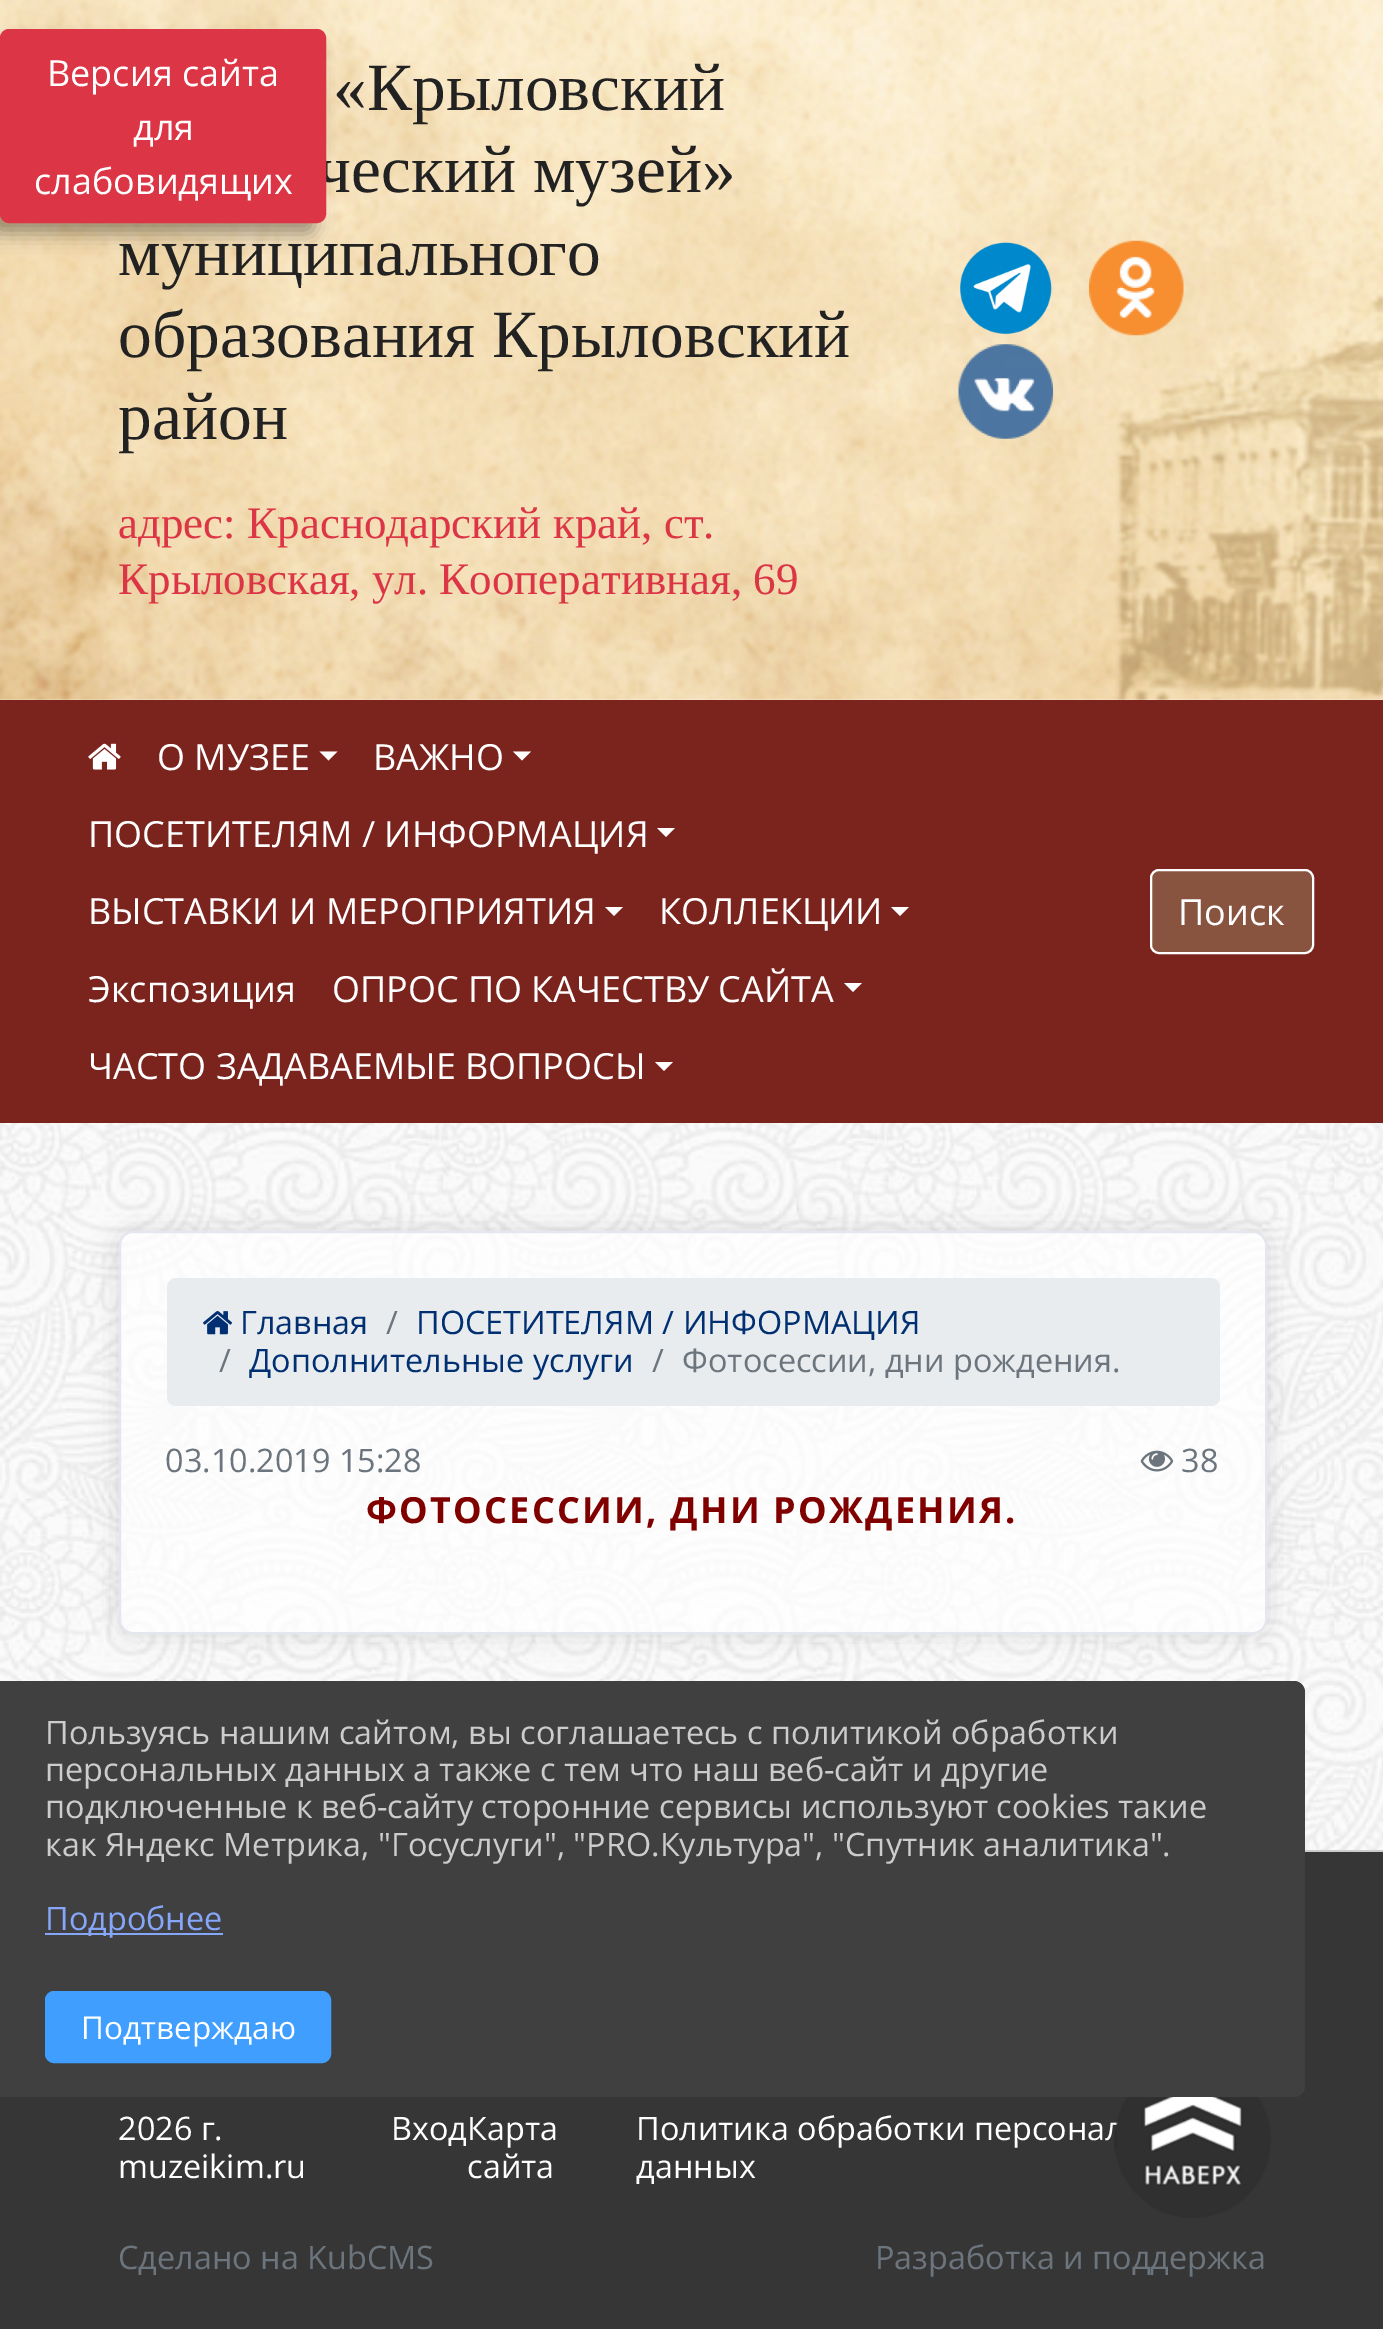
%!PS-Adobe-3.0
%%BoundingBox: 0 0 1383 2329
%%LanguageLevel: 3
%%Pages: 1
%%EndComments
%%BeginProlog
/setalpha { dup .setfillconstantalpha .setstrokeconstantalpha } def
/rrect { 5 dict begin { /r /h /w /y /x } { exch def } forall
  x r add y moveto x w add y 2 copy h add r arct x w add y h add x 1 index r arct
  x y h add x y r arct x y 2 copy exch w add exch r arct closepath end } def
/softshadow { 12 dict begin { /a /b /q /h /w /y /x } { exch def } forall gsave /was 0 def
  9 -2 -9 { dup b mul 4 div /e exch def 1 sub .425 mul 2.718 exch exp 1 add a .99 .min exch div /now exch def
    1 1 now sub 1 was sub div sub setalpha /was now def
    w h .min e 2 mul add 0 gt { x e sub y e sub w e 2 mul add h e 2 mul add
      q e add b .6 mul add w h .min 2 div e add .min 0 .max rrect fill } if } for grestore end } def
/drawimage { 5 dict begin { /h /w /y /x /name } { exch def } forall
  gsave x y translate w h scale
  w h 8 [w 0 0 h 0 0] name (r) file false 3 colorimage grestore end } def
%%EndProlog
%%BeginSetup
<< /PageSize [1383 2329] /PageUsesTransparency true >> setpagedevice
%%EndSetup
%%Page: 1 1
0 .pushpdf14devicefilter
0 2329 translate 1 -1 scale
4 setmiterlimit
1 setgray
0 0 1383 2329 rectfill
(images/1.raw) 0 699 1383 1151 drawimage
(images/2.raw) 0 0 1383 700 drawimage
0 setgray
-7 45 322 189 7 9 0.35 softshadow
(images/3.raw) 960 242 92 93 drawimage
(images/4.raw) 1089 240 95 96 drawimage
(images/5.raw) 958 344 95 95 drawimage
0.482 0.141 0.118 setrgbcolor
0 700 1383 423 rectfill
(images/6.raw) 88 743 33 27 drawimage
1 setgray
newpath 319.5 751.5 moveto 337.5 751.5 lineto 328.5 760.5 lineto closepath fill
newpath 513 751.5 moveto 531 751.5 lineto 522 760.5 lineto closepath fill
newpath 657 828 moveto 675 828 lineto 666 837 lineto closepath fill
newpath 605 907 moveto 623 907 lineto 614 916 lineto closepath fill
newpath 891 907 moveto 909 907 lineto 900 916 lineto closepath fill
newpath 844 983 moveto 862 983 lineto 853 992 lineto closepath fill
newpath 655 1062 moveto 673 1062 lineto 664 1071 lineto closepath fill
0.533 0.329 0.251 setrgbcolor
1151 870 162 83 8 rrect gsave fill grestore
1 setgray
2 setlinewidth
stroke
gsave
newpath 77 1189 moveto 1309 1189 lineto 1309 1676 lineto 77 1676 lineto closepath 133 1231 moveto 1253 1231 lineto 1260.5 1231 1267 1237.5 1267 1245 curveto 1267 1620 lineto 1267 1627.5 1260.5 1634 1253 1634 curveto 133 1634 lineto 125.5 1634 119 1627.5 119 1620 curveto 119 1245 lineto 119 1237.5 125.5 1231 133 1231 curveto closepath eoclip newpath
0 setgray
119 1231 1148 403 14 13.5 0.12 softshadow
grestore
0.7 setalpha
120 1232 1146 401 13 rrect fill
1 setalpha
0.894 0.906 0.929 setrgbcolor
120 1232 1146 401 13 rrect stroke
0.914 0.925 0.937 setrgbcolor
167 1278 1053 128 9 rrect fill
(images/7.raw) 203 1311 30 24 drawimage
(images/8.raw) 1140 1450 34 22 drawimage
0.216 0.212 0.212 setrgbcolor
0 1852 1383 477 rectfill
0.8 setgray
1305 1850 78 2 rectfill
0.251 setgray
newpath 0 1681 moveto 1294 1681 lineto 1300 1681 1305 1686 1305 1692 curveto 1305 2086 lineto 1305 2092 1300 2097 1294 2097 curveto 0 2097 lineto closepath fill
0.522 0.651 0.976 setrgbcolor
45 1933 178 2 rectfill
0.251 0.62 1 setrgbcolor
46 1992 284 70 8 rrect gsave fill grestore
stroke
/LiberationSerif-Regular [67.5 0 0 -67.5 0 0] selectfont
0.133 setgray
333 110 moveto («Крыловский) show
317 192 moveto (ческий музей») show
0.863 0.208 0.271 setrgbcolor
1 30 324 192 8 rrect gsave fill grestore
stroke
/OpenSans-Regular [36 0 0 -36 0 0] selectfont
1 setgray
34 194 moveto (слабовидящих) show
133 140 moveto (для) show
47 86 moveto (Версия сайта) show
/LiberationSerif-Regular [67.5 0 0 -67.5 0 0] selectfont
0.133 setgray
118 275 moveto (муниципального) show
118 357 moveto (образования Крыловский) show
118 439 moveto (район) show
/LiberationSerif-Regular [45 0 0 -45 0 0] selectfont
0.863 0.208 0.271 setrgbcolor
118 538 moveto (адрес: Краснодарский край, ст.) show
118 594 moveto (Крыловская, ул. Кооперативная, 69) show
/OpenSans-Regular [36 0 0 -36 0 0] selectfont
1 setgray
157 770 moveto (О МУЗЕЕ) show
373 770 moveto (ВАЖНО) show
88 847 moveto (ПОСЕТИТЕЛЯМ / ИНФОРМАЦИЯ) show
88 924 moveto (ВЫСТАВКИ И МЕРОПРИЯТИЯ) show
659 924 moveto (КОЛЛЕКЦИИ) show
88 1002 moveto (Экспозиция) show
332 1002 moveto (ОПРОС ПО КАЧЕСТВУ САЙТА) show
88 1079 moveto (ЧАСТО ЗАДАВАЕМЫЕ ВОПРОСЫ) show
1178 925 moveto (Поиск) show
/OpenSans-Regular [32.4 0 0 -32.4 0 0] selectfont
0 0.184 0.447 setrgbcolor
240 1334 moveto (Главная) show
0.424 0.459 0.49 setrgbcolor
386 1334 moveto (/) show
0 0.184 0.447 setrgbcolor
416 1334 moveto (ПОСЕТИТЕЛЯМ / ИНФОРМАЦИЯ) show
0.424 0.459 0.49 setrgbcolor
219 1372 moveto (/) show
0 0.184 0.447 setrgbcolor
249 1372 moveto (Дополнительные услуги) show
0.424 0.459 0.49 setrgbcolor
652 1372 moveto (/) show
682 1372 moveto (Фотосессии, дни рождения.) show
165 1472 moveto (03.10.2019 15:28) show
1181 1472 moveto (38) show
/OpenSans-Bold [36 0 0 -36 0 0] selectfont
0.502 0 0 setrgbcolor
366 1523 moveto 2.25 0 (ФОТОСЕССИИ, ДНИ РОЖДЕНИЯ.) ashow
/OpenSans-Regular [32.4 0 0 -32.4 0 0] selectfont
1 setgray
118 2140 moveto (2026 г.) show
118 2178 moveto (muzeikim.ru) show
391 2140 moveto (ВходКарта) show
636 2140 moveto (Политика обработки персонал) show
(images/9.raw) 1114 2097 157 121 drawimage
636 2178 moveto (данных) show
467 2178 moveto (сайта) show
0.424 0.459 0.49 setrgbcolor
118 2269 moveto (Сделано на KubCMS) show
875 2269 moveto (Разработка и поддержка) show
0.8 setgray
45 1744 moveto (Пользуясь нашим сайтом, вы соглашаетесь с политикой обработки) show
45 1781 moveto (персональных данных а также с тем что наш веб-сайт и другие) show
45 1818 moveto (подключенные к веб-сайту сторонние сервисы используют cookies такие) show
45 1856 moveto (как Яндекс Метрика, "Госуслуги", "PRO.Культура", "Спутник аналитика".) show
0.522 0.651 0.976 setrgbcolor
45 1930 moveto (Подробнее) show
/OpenSans-Regular [31.5 0 0 -31.5 0 0] selectfont
1 setgray
81 2039 moveto (Подтверждаю) show
.poppdf14devicefilter showpage
%%EOF
